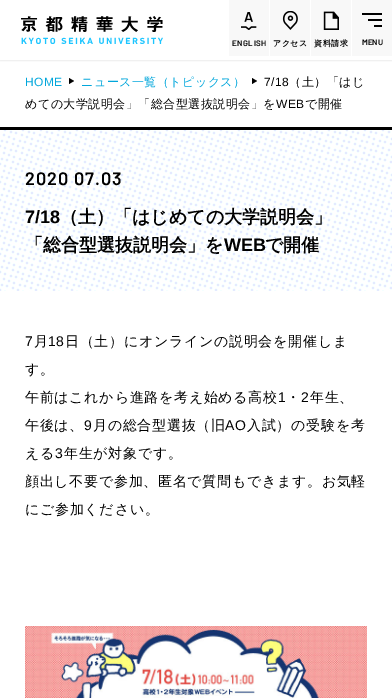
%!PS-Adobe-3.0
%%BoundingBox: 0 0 392 698
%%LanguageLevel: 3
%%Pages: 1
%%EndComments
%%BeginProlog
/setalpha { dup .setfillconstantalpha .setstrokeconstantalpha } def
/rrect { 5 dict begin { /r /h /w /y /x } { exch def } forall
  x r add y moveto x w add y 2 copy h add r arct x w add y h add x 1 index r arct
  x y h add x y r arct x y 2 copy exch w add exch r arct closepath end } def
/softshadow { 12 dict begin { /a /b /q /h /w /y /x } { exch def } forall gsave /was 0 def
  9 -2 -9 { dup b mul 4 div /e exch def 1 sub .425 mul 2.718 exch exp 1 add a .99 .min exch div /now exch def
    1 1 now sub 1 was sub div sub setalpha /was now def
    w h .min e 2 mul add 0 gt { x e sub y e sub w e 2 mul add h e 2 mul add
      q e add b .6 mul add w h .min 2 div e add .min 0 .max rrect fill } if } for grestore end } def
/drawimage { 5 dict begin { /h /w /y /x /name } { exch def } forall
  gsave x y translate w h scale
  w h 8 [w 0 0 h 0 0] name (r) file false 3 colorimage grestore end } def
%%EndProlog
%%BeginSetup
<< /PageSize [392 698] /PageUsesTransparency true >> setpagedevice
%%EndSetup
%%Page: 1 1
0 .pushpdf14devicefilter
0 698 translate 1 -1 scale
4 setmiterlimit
1 setgray
0 0 392 698 rectfill
gsave
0 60 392 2 rectclip
0.933 setgray
0 1 392 60 0 0.5 1 softshadow
grestore
(images/1.raw) 21 16 142 28 drawimage
0.973 setgray
229 0 40 56 rectfill
(images/2.raw) 241 12 16 18 drawimage
270 0 40 56 rectfill
(images/3.raw) 282 11 16 19 drawimage
311 0 40 56 rectfill
(images/4.raw) 323 11 16 19 drawimage
352 0 40 56 rectfill
0 setgray
368 19 14 2 rectfill
362 13 20 2 rectfill
374 25 8 2 rectfill
newpath 252 84 moveto 252 78 lineto 257 81 lineto closepath fill
newpath 69 84 moveto 69 78 lineto 74 81 lineto closepath fill
(images/5.raw) 0 130 392 161 drawimage
0 127 392 3 rectfill
(images/6.raw) 25 626 342 72 drawimage
/Barlow-SemiBold [8 0 0 -8 0 0] selectfont
232 46 moveto 0.5 0 (ENGLISH) ashow
/WenQuanYiZenHei-Bold [8 0 0 -8 0 0] selectfont
273 46 moveto 0.5 0 (アクセス) ashow
314 46 moveto 0.5 0 (資料請求) ashow
/Barlow-SemiBold [8 0 0 -8 0 0] selectfont
362 45 moveto (MENU) show
/LiberationSans-Regular [12 0 0 -12 0 0] selectfont
264 86 moveto 0.5 0 (7/18) ashow
/WenQuanYiZenHei-Medium [12 0 0 -12 0 0] selectfont
289 86 moveto 0.5 0 (（土）「はじ) ashow
25 108 moveto 0.5 0 (めての大学説明会」「総合型選抜説明会」を) ashow
/LiberationSans-Regular [12 0 0 -12 0 0] selectfont
276 108 moveto 0.5 0 (WEB) ashow
/WenQuanYiZenHei-Medium [12 0 0 -12 0 0] selectfont
305 108 moveto 0.5 0 (で開催) ashow
/LiberationSans-Regular [12 0 0 -12 0 0] selectfont
0.004 0.651 0.859 setrgbcolor
25 86 moveto 0.5 0 (HOME) ashow
/WenQuanYiZenHei-Medium [12 0 0 -12 0 0] selectfont
81 86 moveto 0.5 0 (ニュース一覧（トピックス）) ashow
/Barlow-SemiBold [18 0 0 -18 0 0] selectfont
0 setgray
25 185 moveto 1 0 (2020 07.03) ashow
/LiberationSans-Bold [18 0 0 -18 0 0] selectfont
25 223 moveto (7/18) show
/WenQuanYiZenHei-Bold [18 0 0 -18 0 0] selectfont
60 223 moveto (（土）「はじめての大学説明会」) show
25 251 moveto (「総合型選抜説明会」を) show
/LiberationSans-Bold [18 0 0 -18 0 0] selectfont
224 251 moveto (WEB) show
/WenQuanYiZenHei-Bold [18 0 0 -18 0 0] selectfont
265 251 moveto (で開催) show
/LiberationSans-Regular [14 0 0 -14 0 0] selectfont
25 346 moveto 0.7 0 (7) ashow
/WenQuanYiZenHei-Medium [14 0 0 -14 0 0] selectfont
34 346 moveto 0.7 0 (月) ashow
/LiberationSans-Regular [14 0 0 -14 0 0] selectfont
48 346 moveto 0.7 0 (18) ashow
/WenQuanYiZenHei-Medium [14 0 0 -14 0 0] selectfont
65 346 moveto 0.7 0 (日（土）にオンラインの説明会を開催しま) ashow
25 374 moveto 0.7 0 (す。) ashow
25 402 moveto 0.7 0 (午前はこれから進路を考え始める高校) ashow
/LiberationSans-Regular [14 0 0 -14 0 0] selectfont
278 402 moveto 0.7 0 (1) ashow
/WenQuanYiZenHei-Medium [14 0 0 -14 0 0] selectfont
286 402 moveto 0.7 0 (・) ashow
/LiberationSans-Regular [14 0 0 -14 0 0] selectfont
301 402 moveto 0.7 0 (2) ashow
/WenQuanYiZenHei-Medium [14 0 0 -14 0 0] selectfont
310 402 moveto 0.7 0 (年生、) ashow
25 430 moveto 0.7 0 (午後は、) ashow
/LiberationSans-Regular [14 0 0 -14 0 0] selectfont
84 430 moveto 0.7 0 (9) ashow
/WenQuanYiZenHei-Medium [14 0 0 -14 0 0] selectfont
93 430 moveto 0.7 0 (月の総合型選抜（旧) ashow
/LiberationSans-Regular [14 0 0 -14 0 0] selectfont
225 430 moveto 0.7 0 (AO) ashow
/WenQuanYiZenHei-Medium [14 0 0 -14 0 0] selectfont
247 430 moveto 0.7 0 (入試）の受験を考) ashow
25 458 moveto 0.7 0 (える) ashow
/LiberationSans-Regular [14 0 0 -14 0 0] selectfont
55 458 moveto 0.7 0 (3) ashow
/WenQuanYiZenHei-Medium [14 0 0 -14 0 0] selectfont
64 458 moveto 0.7 0 (年生が対象です。) ashow
25 486 moveto 0.7 0 (顔出し不要で参加、匿名で質問もできます。お気軽) ashow
25 514 moveto 0.7 0 (にご参加ください。) ashow
.poppdf14devicefilter showpage
%%EOF
